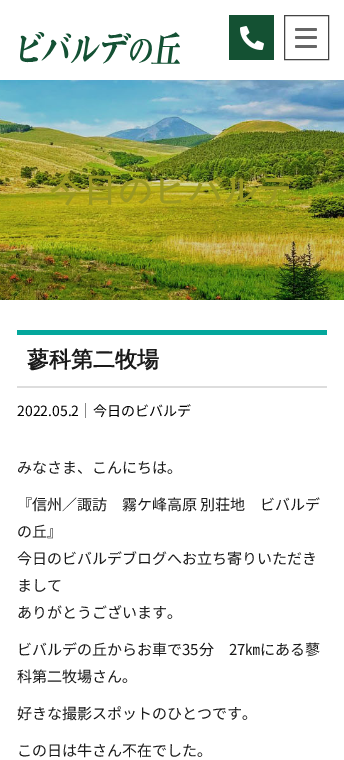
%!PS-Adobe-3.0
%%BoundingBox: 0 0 344 760
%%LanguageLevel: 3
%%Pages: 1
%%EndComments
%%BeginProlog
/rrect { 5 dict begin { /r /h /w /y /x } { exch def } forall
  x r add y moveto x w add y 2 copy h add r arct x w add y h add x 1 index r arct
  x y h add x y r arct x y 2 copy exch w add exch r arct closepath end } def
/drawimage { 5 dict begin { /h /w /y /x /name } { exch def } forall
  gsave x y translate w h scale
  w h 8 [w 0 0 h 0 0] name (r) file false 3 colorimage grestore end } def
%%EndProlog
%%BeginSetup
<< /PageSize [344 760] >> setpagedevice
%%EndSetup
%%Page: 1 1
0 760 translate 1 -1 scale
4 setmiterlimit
1 setgray
0 0 344 760 rectfill
(images/1.raw) 20 32 160 32 drawimage
0.078 0.318 0.2 setrgbcolor
229 15 45 45 rectfill
(images/2.raw) 240 26 24 24 drawimage
0.267 setgray
284.5 15.5 44 44 rectstroke
0.4 setgray
295 28 22 3 1.5 rrect fill
295 36 22 3 1.5 rrect fill
295 45 22 3 1.5 rrect fill
(images/3.raw) 0 80 344 220 drawimage
0.016 0.655 0.612 setrgbcolor
17 330 310 5 rectfill
0.867 setgray
17 386 310 2 rectfill
0.533 setgray
85 403 1 15 rectfill
/WenQuanYiZenHei-Bold [32 0 0 -32 0 0] selectfont
0.6 0.592 0.137 setrgbcolor
50 201 moveto 2.25 0 (今日のビバルデ) ashow
/WenQuanYiZenHei-Bold [22 0 0 -22 0 0] selectfont
0.102 setgray
27 367 moveto (蓼科第二牧場) show
/NotoSansJP-Regular [14 0 0 -14 0 0] selectfont
0 setgray
17 416 moveto (2022.05.2) show
93 416 moveto (今日のビバルデ) show
/NotoSansJP-Regular [15 0 0 -15 0 0] selectfont
0.102 setgray
17 473 moveto (みなさま、こんにちは。) show
17 510 moveto (『信州／諏訪　霧ケ峰高原 別荘地　ビバルデ) show
17 537 moveto (の丘』) show
17 564 moveto (今日のビバルデブログへお立ち寄りいただき) show
17 591 moveto (まして) show
17 618 moveto (ありがとうございます。) show
17 655 moveto (ビバルデの丘からお車で35分　27㎞にある蓼) show
17 682 moveto (科第二牧場さん。) show
17 719 moveto (好きな撮影スポットのひとつです。) show
17 756 moveto (この日は牛さん不在でした。) show
showpage
%%EOF
